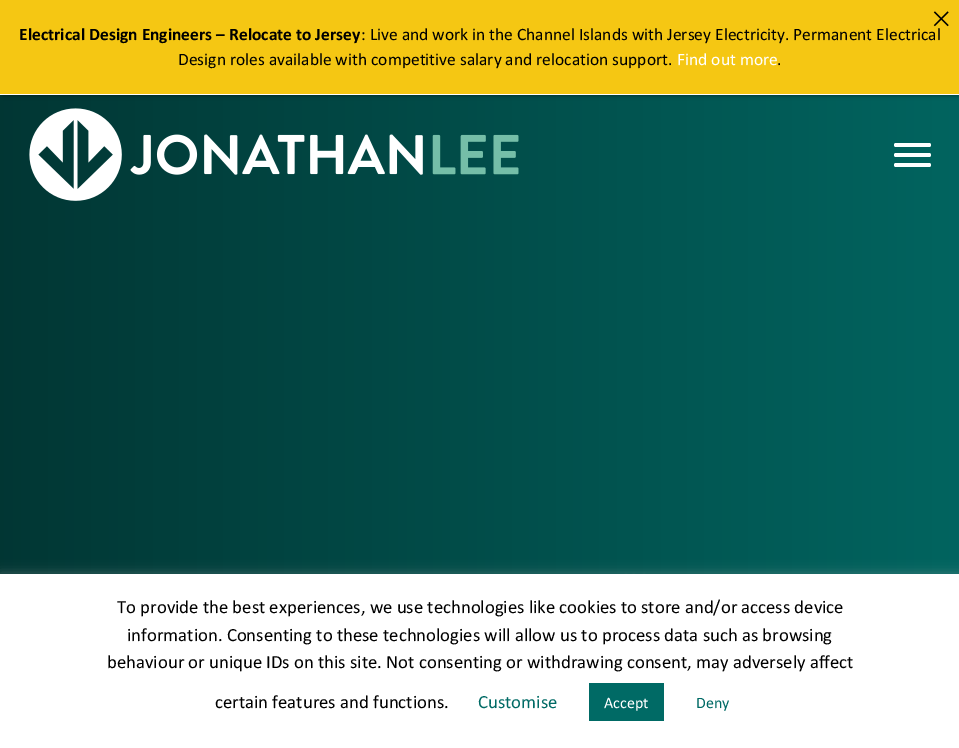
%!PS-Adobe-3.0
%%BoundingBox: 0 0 959 748
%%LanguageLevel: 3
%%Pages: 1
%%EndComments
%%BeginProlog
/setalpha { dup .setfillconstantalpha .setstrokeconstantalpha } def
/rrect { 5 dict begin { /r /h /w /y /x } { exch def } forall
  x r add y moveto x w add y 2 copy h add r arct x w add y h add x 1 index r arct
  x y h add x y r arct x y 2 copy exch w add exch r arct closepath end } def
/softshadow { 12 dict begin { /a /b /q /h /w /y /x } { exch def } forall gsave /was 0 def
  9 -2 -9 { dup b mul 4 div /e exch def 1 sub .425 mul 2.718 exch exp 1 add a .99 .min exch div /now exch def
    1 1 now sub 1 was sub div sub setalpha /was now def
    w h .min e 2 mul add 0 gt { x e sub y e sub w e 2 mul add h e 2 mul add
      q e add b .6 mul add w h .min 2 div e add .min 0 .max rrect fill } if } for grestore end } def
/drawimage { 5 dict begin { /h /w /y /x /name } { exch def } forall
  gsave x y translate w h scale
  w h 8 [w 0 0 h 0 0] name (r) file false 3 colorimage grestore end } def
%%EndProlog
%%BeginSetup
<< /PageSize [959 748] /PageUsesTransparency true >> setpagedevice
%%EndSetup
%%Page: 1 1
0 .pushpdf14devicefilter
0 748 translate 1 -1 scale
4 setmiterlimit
1 setgray
0 0 959 748 rectfill
(images/2.raw) 0 95 959 479 drawimage
0 setgray
3 5 955 90 0 2.5 0.5 softshadow
0.961 0.78 0.075 setrgbcolor
0 0 959 94 rectfill
1 setgray
0 94 959 1 rectfill
(images/1.raw) 933 11 16 16 drawimage
(images/3.raw) 29 108 490 93 drawimage
894 153 37 4 2 rrect fill
894 143 37 4 2 rrect fill
894 163 37 4 2 rrect fill
0.675 0.671 0.671 setrgbcolor
0 573 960 175 0 6 0.3 softshadow
1 setgray
0 574 959 174 rectfill
0 0.416 0.396 setrgbcolor
589 683 75 38 rectfill
/Calibri-Bold [17.5 0 0 -17.5 0 0] selectfont
0 setgray
19 40 moveto (Electrical Design Engineers – Relocate to Jersey) show
/Calibri-Regular [17.5 0 0 -17.5 0 0] selectfont
361 40 moveto (: Live and work in the Channel Islands with Jersey Electricity. Permanent Electrical) show
178 65 moveto (Design roles available with competitive salary and relocation support.) show
1 setgray
677 65 moveto (Find out more) show
0 setgray
777 65 moveto (.) show
/Calibri-Regular [18.75 0 0 -18.75 0 0] selectfont
117 613 moveto (To provide the best experiences, we use technologies like cookies to store and/or access device) show
127 641 moveto (information. Consenting to these technologies will allow us to process data such as browsing) show
107 668 moveto (behaviour or unique IDs on this site. Not consenting or withdrawing consent, may adversely affect) show
215 708 moveto (certain features and functions.) show
0 0.416 0.396 setrgbcolor
478 708 moveto (Customise) show
/Calibri-Regular [16 0 0 -16 0 0] selectfont
1 setgray
604 708 moveto (Accept) show
0 0.416 0.396 setrgbcolor
696 708 moveto (Deny) show
.poppdf14devicefilter showpage
%%EOF
